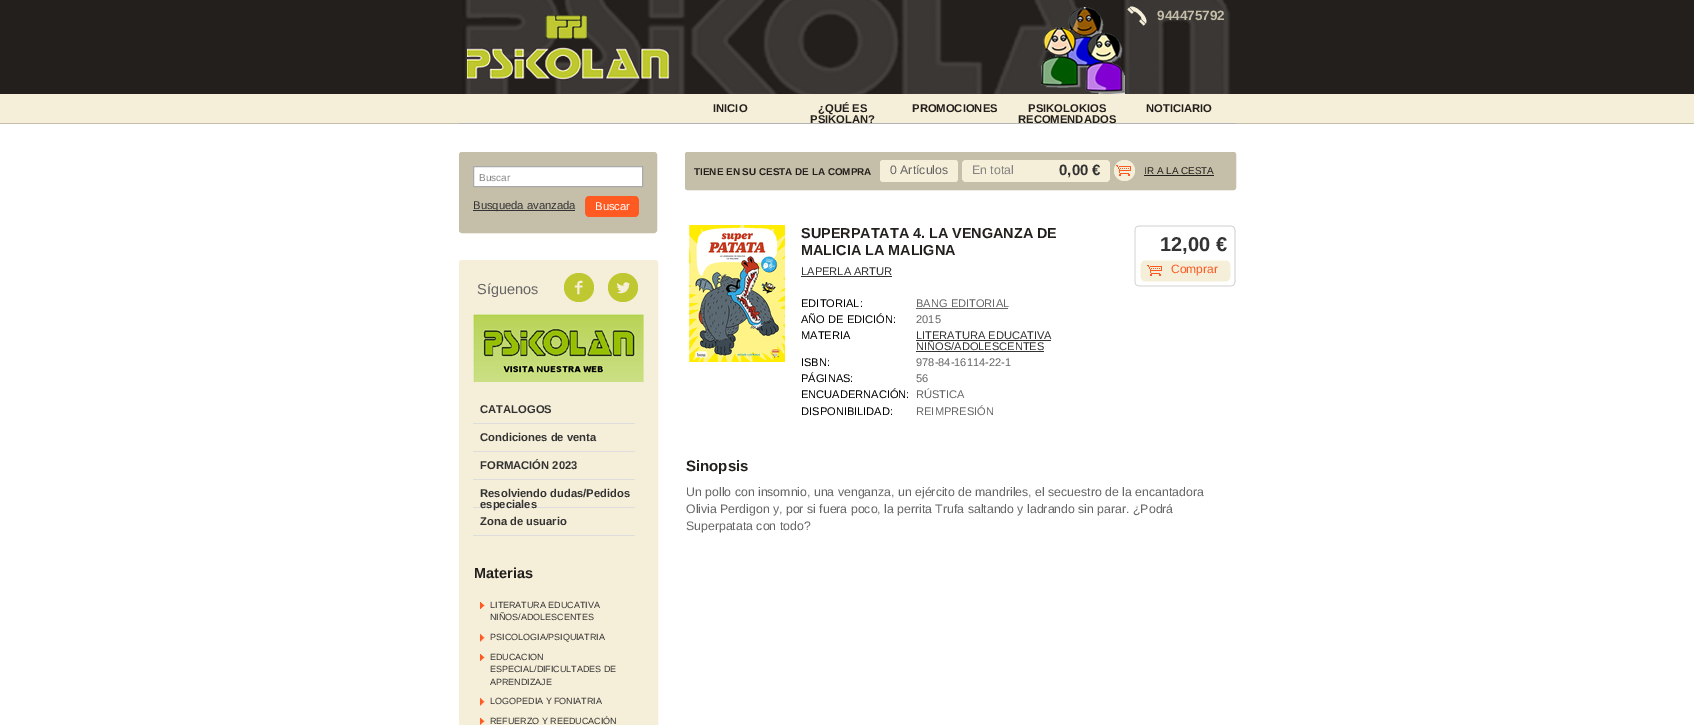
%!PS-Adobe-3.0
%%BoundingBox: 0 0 1694 725
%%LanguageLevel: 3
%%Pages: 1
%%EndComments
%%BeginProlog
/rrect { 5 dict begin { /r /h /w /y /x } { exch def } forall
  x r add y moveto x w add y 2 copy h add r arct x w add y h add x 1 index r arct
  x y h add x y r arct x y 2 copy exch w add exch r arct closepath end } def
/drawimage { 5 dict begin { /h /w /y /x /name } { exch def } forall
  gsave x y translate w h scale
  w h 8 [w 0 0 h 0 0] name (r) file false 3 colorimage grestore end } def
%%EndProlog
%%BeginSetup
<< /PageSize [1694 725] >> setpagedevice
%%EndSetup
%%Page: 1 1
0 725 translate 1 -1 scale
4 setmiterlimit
1 setgray
0 0 1694 725 rectfill
(images/1.raw) 0 0 1694 124 drawimage
(images/2.raw) 459 0 777 124 drawimage
(images/3.raw) 467 15 203 66 drawimage
(images/4.raw) 1127 6 20 20 drawimage
0.773 0.745 0.663 setrgbcolor
459.5 152.5 197 80 2.5 rrect gsave fill grestore
stroke
1 setgray
newpath 473.5 166.5 moveto 642.5 166.5 lineto 642.5 186.5 lineto 473.5 186.5 lineto closepath gsave fill grestore
0.667 setgray
stroke
(images/5.raw) 585 196 54 21 drawimage
0.2 setgray
473 210 102 1 rectfill
0.961 0.933 0.847 setrgbcolor
459.5 260.5 198 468 2.5 rrect gsave fill grestore
stroke
(images/6.raw) 564 273 30 29 drawimage
(images/7.raw) 608 273 30 29 drawimage
(images/8.raw) 473 314 171 68 drawimage
0.867 setgray
473 423 162 1 rectfill
473 451 162 1 rectfill
473 479 162 1 rectfill
473 507 162 1 rectfill
473 535 162 1 rectfill
(images/9.raw) 480 602 5 7 drawimage
(images/10.raw) 480 634 5 8 drawimage
(images/11.raw) 480 654 5 7 drawimage
(images/10.raw) 480 698 5 8 drawimage
(images/12.raw) 480 717 5 8 drawimage
0.773 0.745 0.663 setrgbcolor
685.5 152.5 550 37 2 rrect gsave fill grestore
stroke
0.961 0.933 0.847 setrgbcolor
880 160 78 22 3 rrect fill
962 160 148 22 4 rrect fill
(images/13.raw) 1114 160 21 21 drawimage
0.137 0.122 0.11 setrgbcolor
1144 175 70 1 rectfill
(images/14.raw) 685 225 100 137 drawimage
0.2 setgray
801 276 91 1 rectfill
0.4 setgray
916 308 92 1 rectfill
0.2 setgray
916 340 135 1 rectfill
916 351 128 1 rectfill
(images/15.raw) 1134 225 102 62 drawimage
/LiberationSans-Bold [13.5 0 0 -13.5 0 0] selectfont
0.773 0.745 0.663 setrgbcolor
1157 20 moveto (944475792) show
/LiberationSans-Bold [11.25 0 0 -11.25 0 0] selectfont
0.137 0.122 0.11 setrgbcolor
713 112 moveto (INICIO) show
818 112 moveto (¿QUÉ ES) show
810 123 moveto (PSIKOLAN?) show
912 112 moveto (PROMOCIONES) show
1028 112 moveto (PSIKOLOKIOS) show
1018 123 moveto (RECOMENDADOS) show
1146 112 moveto (NOTICIARIO) show
/LiberationSans-Regular [10 0 0 -10 0 0] selectfont
0.518 setgray
479 181 moveto (Buscar) show
/LiberationSans-Regular [11.25 0 0 -11.25 0 0] selectfont
1 setgray
595 210 moveto (Buscar) show
0.2 setgray
473 209 moveto (Busqueda avanzada) show
/LiberationSans-Regular [14.5 0 0 -14.5 0 0] selectfont
0.4 setgray
477 294 moveto (Síguenos) show
/LiberationSans-Bold [11.25 0 0 -11.25 0 0] selectfont
0.2 setgray
480 413 moveto (CATALOGOS) show
480 441 moveto (Condiciones de venta) show
480 469 moveto (FORMACIÓN 2023) show
480 497 moveto (Resolviendo dudas/Pedidos) show
480 508 moveto (especiales) show
480 525 moveto (Zona de usuario) show
/LiberationSans-Bold [14.5 0 0 -14.5 0 0] selectfont
0.137 0.122 0.11 setrgbcolor
474 578 moveto (Materias) show
/LiberationSans-Regular [9 0 0 -9 0 0] selectfont
0.2 setgray
490 608 moveto (LITERATURA EDUCATIVA) show
490 620 moveto (NIÑOS/ADOLESCENTES) show
490 640 moveto (PSICOLOGIA/PSIQUIATRIA) show
490 660 moveto (EDUCACION) show
490 672 moveto (ESPECIAL/DIFICULTADES DE) show
490 685 moveto (APRENDIZAJE) show
490 704 moveto (LOGOPEDIA Y FONIATRIA) show
490 724 moveto (REFUERZO Y REEDUCACIÓN) show
/LiberationSans-Bold [9.9 0 0 -9.9 0 0] selectfont
0.137 0.122 0.11 setrgbcolor
694 175 moveto (TIENE EN SU CESTA DE LA COMPRA) show
/LiberationSans-Regular [12.3 0 0 -12.3 0 0] selectfont
0.4 setgray
890 174 moveto (0 Artículos) show
0.518 setgray
972 174 moveto (En total) show
/LiberationSans-Bold [15 0 0 -15 0 0] selectfont
0.2 setgray
1059 175 moveto (0,00 €) show
/LiberationSans-Regular [9.9 0 0 -9.9 0 0] selectfont
0.137 0.122 0.11 setrgbcolor
1144 174 moveto (IR A LA CESTA) show
/LiberationSans-Bold [14.4 0 0 -14.4 0 0] selectfont
801 238 moveto (SUPERPATATA 4. LA VENGANZA DE) show
801 255 moveto (MALICIA LA MALIGNA) show
/LiberationSans-Regular [11.1 0 0 -11.1 0 0] selectfont
0.2 setgray
801 275 moveto (LAPERLA ARTUR) show
0 setgray
801 307 moveto (EDITORIAL:) show
0.4 setgray
916 307 moveto (BANG EDITORIAL) show
0 setgray
801 323 moveto (AÑO DE EDICIÓN:) show
0.4 setgray
916 323 moveto (2015) show
0 setgray
801 339 moveto (MATERIA) show
0.2 setgray
916 339 moveto (LITERATURA EDUCATIVA) show
916 350 moveto (NIÑOS/ADOLESCENTES) show
0 setgray
801 366 moveto (ISBN:) show
0.4 setgray
916 366 moveto (978-84-16114-22-1) show
0 setgray
801 382 moveto (PÁGINAS:) show
0.4 setgray
916 382 moveto (56) show
0 setgray
801 398 moveto (ENCUADERNACIÓN:) show
0.4 setgray
916 398 moveto (RÚSTICA) show
0 setgray
801 415 moveto (DISPONIBILIDAD:) show
0.4 setgray
916 415 moveto (REIMPRESIÓN) show
/LiberationSans-Bold [20 0 0 -20 0 0] selectfont
0.2 setgray
1160 251 moveto (12,00 €) show
/LiberationSans-Regular [12 0 0 -12 0 0] selectfont
1 0.353 0.133 setrgbcolor
1171 273 moveto (Comprar) show
/LiberationSans-Bold [15 0 0 -15 0 0] selectfont
0.137 0.122 0.11 setrgbcolor
686 471 moveto (Sinopsis) show
/LiberationSans-Regular [12.3 0 0 -12.3 0 0] selectfont
0.4 setgray
686 496 moveto (Un pollo con insomnio, una venganza, un ejército de mandriles, el secuestro de la encantadora) show
686 513 moveto (Olivia Perdigon y, por si fuera poco, la perrita Trufa saltando y ladrando sin parar. ¿Podrá) show
686 530 moveto (Superpatata con todo?) show
showpage
%%EOF
